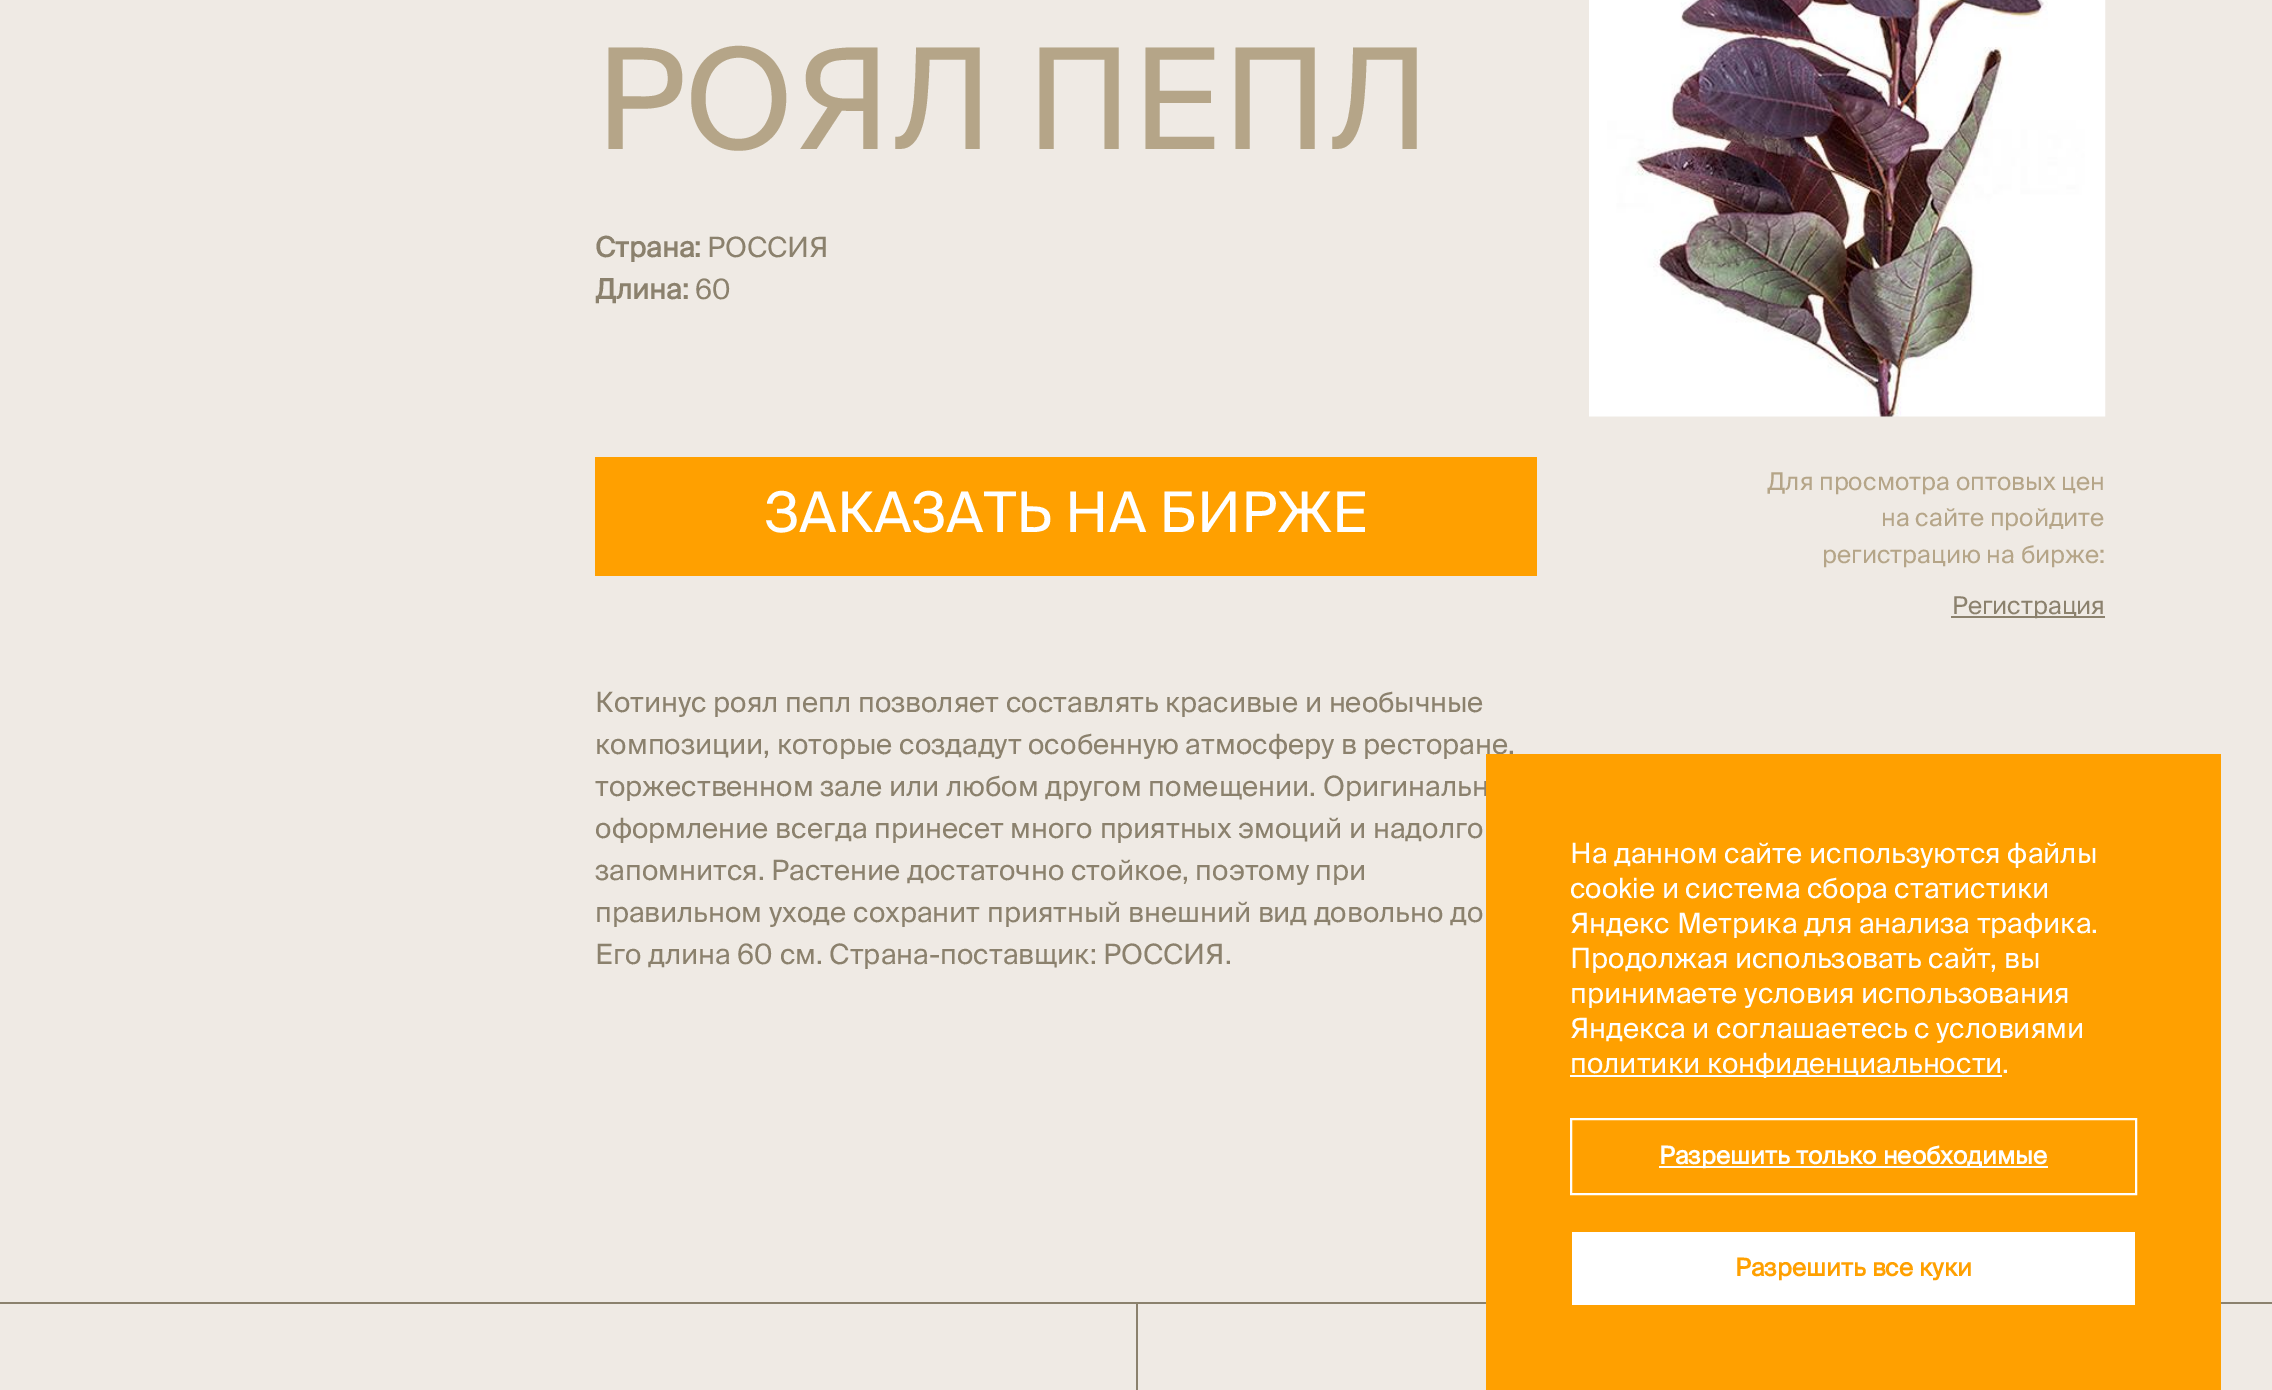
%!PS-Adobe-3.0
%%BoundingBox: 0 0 2272 1390
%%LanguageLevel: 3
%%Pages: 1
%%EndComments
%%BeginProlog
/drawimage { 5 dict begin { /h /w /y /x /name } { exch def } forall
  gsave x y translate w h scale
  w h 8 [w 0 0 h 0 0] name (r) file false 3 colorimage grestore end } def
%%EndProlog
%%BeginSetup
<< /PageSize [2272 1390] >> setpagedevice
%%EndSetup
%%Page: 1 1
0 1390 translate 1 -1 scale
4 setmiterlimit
0.937 0.918 0.894 setrgbcolor
0 0 2272 1390 rectfill
1 0.627 0 setrgbcolor
595 457 942 119 rectfill
(images/1.raw) 1589 0 517 417 drawimage
0.545 0.506 0.427 setrgbcolor
1951 616 154 2 rectfill
0 1302 2272 2 rectfill
1136 1304 2 86 rectfill
/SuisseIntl-Regular [140 0 0 -140 0 0] selectfont
0.71 0.647 0.533 setrgbcolor
595 149 moveto (РОЯЛ ПЕПЛ) show
/SuisseIntl-Bold [28 0 0 -28 0 0] selectfont
0.545 0.506 0.427 setrgbcolor
595 257 moveto (Страна:) show
/SuisseIntl-Regular [28 0 0 -28 0 0] selectfont
707 257 moveto (РОССИЯ) show
/SuisseIntl-Bold [28 0 0 -28 0 0] selectfont
595 299 moveto (Длина:) show
/SuisseIntl-Regular [28 0 0 -28 0 0] selectfont
695 299 moveto (60) show
/SuisseIntl-Regular [56 0 0 -56 0 0] selectfont
1 setgray
764 532 moveto (ЗАКАЗАТЬ НА БИРЖЕ) show
/SuisseIntl-Regular [28 0 0 -28 0 0] selectfont
0.545 0.506 0.427 setrgbcolor
595 712 moveto (Котинус роял пепл позволяет составлять красивые и необычные) show
595 754 moveto (композиции, которые создадут особенную атмосферу в ресторане,) show
595 796 moveto (торжественном зале или любом другом помещении. Оригинальн) show
595 838 moveto (оформление всегда принесет много приятных эмоций и надолго) show
595 880 moveto (запомнится. Растение достаточно стойкое, поэтому при) show
595 922 moveto (правильном уходе сохранит приятный внешний вид довольно до) show
595 964 moveto (Его длина 60 см. Страна-поставщик: РОССИЯ.) show
/SuisseIntl-Regular [24.5 0 0 -24.5 0 0] selectfont
0.71 0.647 0.533 setrgbcolor
1767 490 moveto (Для просмотра оптовых цен) show
1881 526 moveto (на сайте пройдите) show
1822 563 moveto (регистрацию на бирже:) show
0.545 0.506 0.427 setrgbcolor
1952 614 moveto (Регистрация) show
1 0.627 0 setrgbcolor
1486 754 735 636 rectfill
/SuisseIntl-Regular [28 0 0 -28 0 0] selectfont
1 setgray
1570 863 moveto (На данном сайте используются файлы) show
1570 898 moveto (cookie и система сбора статистики) show
1570 933 moveto (Яндекс Метрика для анализа трафика.) show
1570 968 moveto (Продолжая использовать сайт, вы) show
1570 1003 moveto (принимаете условия использования) show
1570 1038 moveto (Яндекса и соглашаетесь с условиями) show
1570 1075 432 2 rectfill
1570 1073 moveto (политики конфиденциальности.) show
2 setlinewidth
1571 1119 565 75 rectstroke
1659 1166 389 2 rectfill
/SuisseIntl-Bold [24.5 0 0 -24.5 0 0] selectfont
1659 1164 moveto (Разрешить только необходимые) show
1572 1232 563 73 rectfill
1 0.627 0 setrgbcolor
1735 1276 moveto (Разрешить все куки) show
showpage
%%EOF
